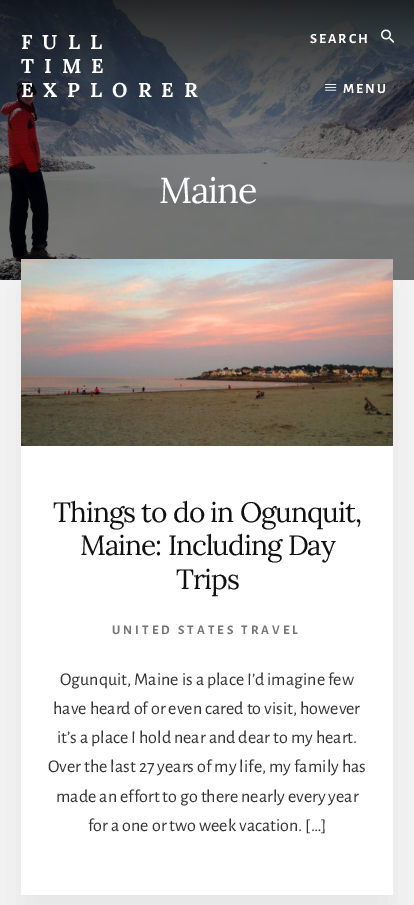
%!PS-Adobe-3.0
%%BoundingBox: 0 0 414 905
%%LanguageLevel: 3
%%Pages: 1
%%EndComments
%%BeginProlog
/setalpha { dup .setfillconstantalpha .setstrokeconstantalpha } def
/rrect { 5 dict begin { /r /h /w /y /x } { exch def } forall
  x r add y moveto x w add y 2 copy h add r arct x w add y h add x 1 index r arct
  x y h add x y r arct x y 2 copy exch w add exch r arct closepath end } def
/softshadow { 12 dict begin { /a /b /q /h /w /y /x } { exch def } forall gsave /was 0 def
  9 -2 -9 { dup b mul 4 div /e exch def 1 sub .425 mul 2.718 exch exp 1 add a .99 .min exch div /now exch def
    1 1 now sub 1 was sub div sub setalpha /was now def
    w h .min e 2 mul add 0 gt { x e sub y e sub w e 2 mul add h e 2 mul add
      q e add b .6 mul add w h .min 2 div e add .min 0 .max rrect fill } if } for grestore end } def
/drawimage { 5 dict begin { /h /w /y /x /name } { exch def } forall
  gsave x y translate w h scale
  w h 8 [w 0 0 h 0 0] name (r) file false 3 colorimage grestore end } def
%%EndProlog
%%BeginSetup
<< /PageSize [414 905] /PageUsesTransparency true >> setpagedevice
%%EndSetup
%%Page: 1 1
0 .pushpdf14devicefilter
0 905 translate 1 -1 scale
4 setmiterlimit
0.957 setgray
0 0 414 905 rectfill
(images/1.raw) 0 0 414 280 drawimage
(images/2.raw) 381 29 13 14 drawimage
(images/3.raw) 325 84 12 7 drawimage
0 setgray
21 284 372 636 0 20 0.05 softshadow
1 setgray
21 446 372 449 rectfill
(images/4.raw) 21 259 372 187 drawimage
/Lora-Bold [20 0 0 -20 0 0] selectfont
21 49 moveto 10 0 (FULL) ashow
21 73 moveto 10 0 (TIME) ashow
21 97 moveto 10 0 (EXPLORER) ashow
/AlegreyaSans-Bold [14 0 0 -14 0 0] selectfont
310 43 moveto 2 0 (SEARCH) ashow
343 93 moveto 2 0 (MENU) ashow
/Lora-Regular [36 0 0 -36 0 0] selectfont
159 203 moveto -1.25 0 (Maine) ashow
/Lora-Regular [28 0 0 -28 0 0] selectfont
0.067 setgray
53 522 moveto -1 0 (Things to do in Ogunquit,) ashow
80 555 moveto -1 0 (Maine: Including Day) ashow
176 589 moveto -1 0 (Trips) ashow
/AlegreyaSans-Bold [13 0 0 -13 0 0] selectfont
0.463 setgray
112 634 moveto 3 0 (UNITED STATES TRAVEL) ashow
/AlegreyaSans-Regular [18 0 0 -18 0 0] selectfont
0.2 setgray
60 685 moveto (Ogunquit, Maine is a place I’d imagine few) show
53 714 moveto (have heard of or even cared to visit, however) show
57 743 moveto (it’s a place I hold near and dear to my heart.) show
48 772 moveto (Over the last 27 years of my life, my family has) show
56 802 moveto (made an effort to go there nearly every year) show
88 831 moveto (for a one or two week vacation. […]) show
.poppdf14devicefilter showpage
%%EOF
